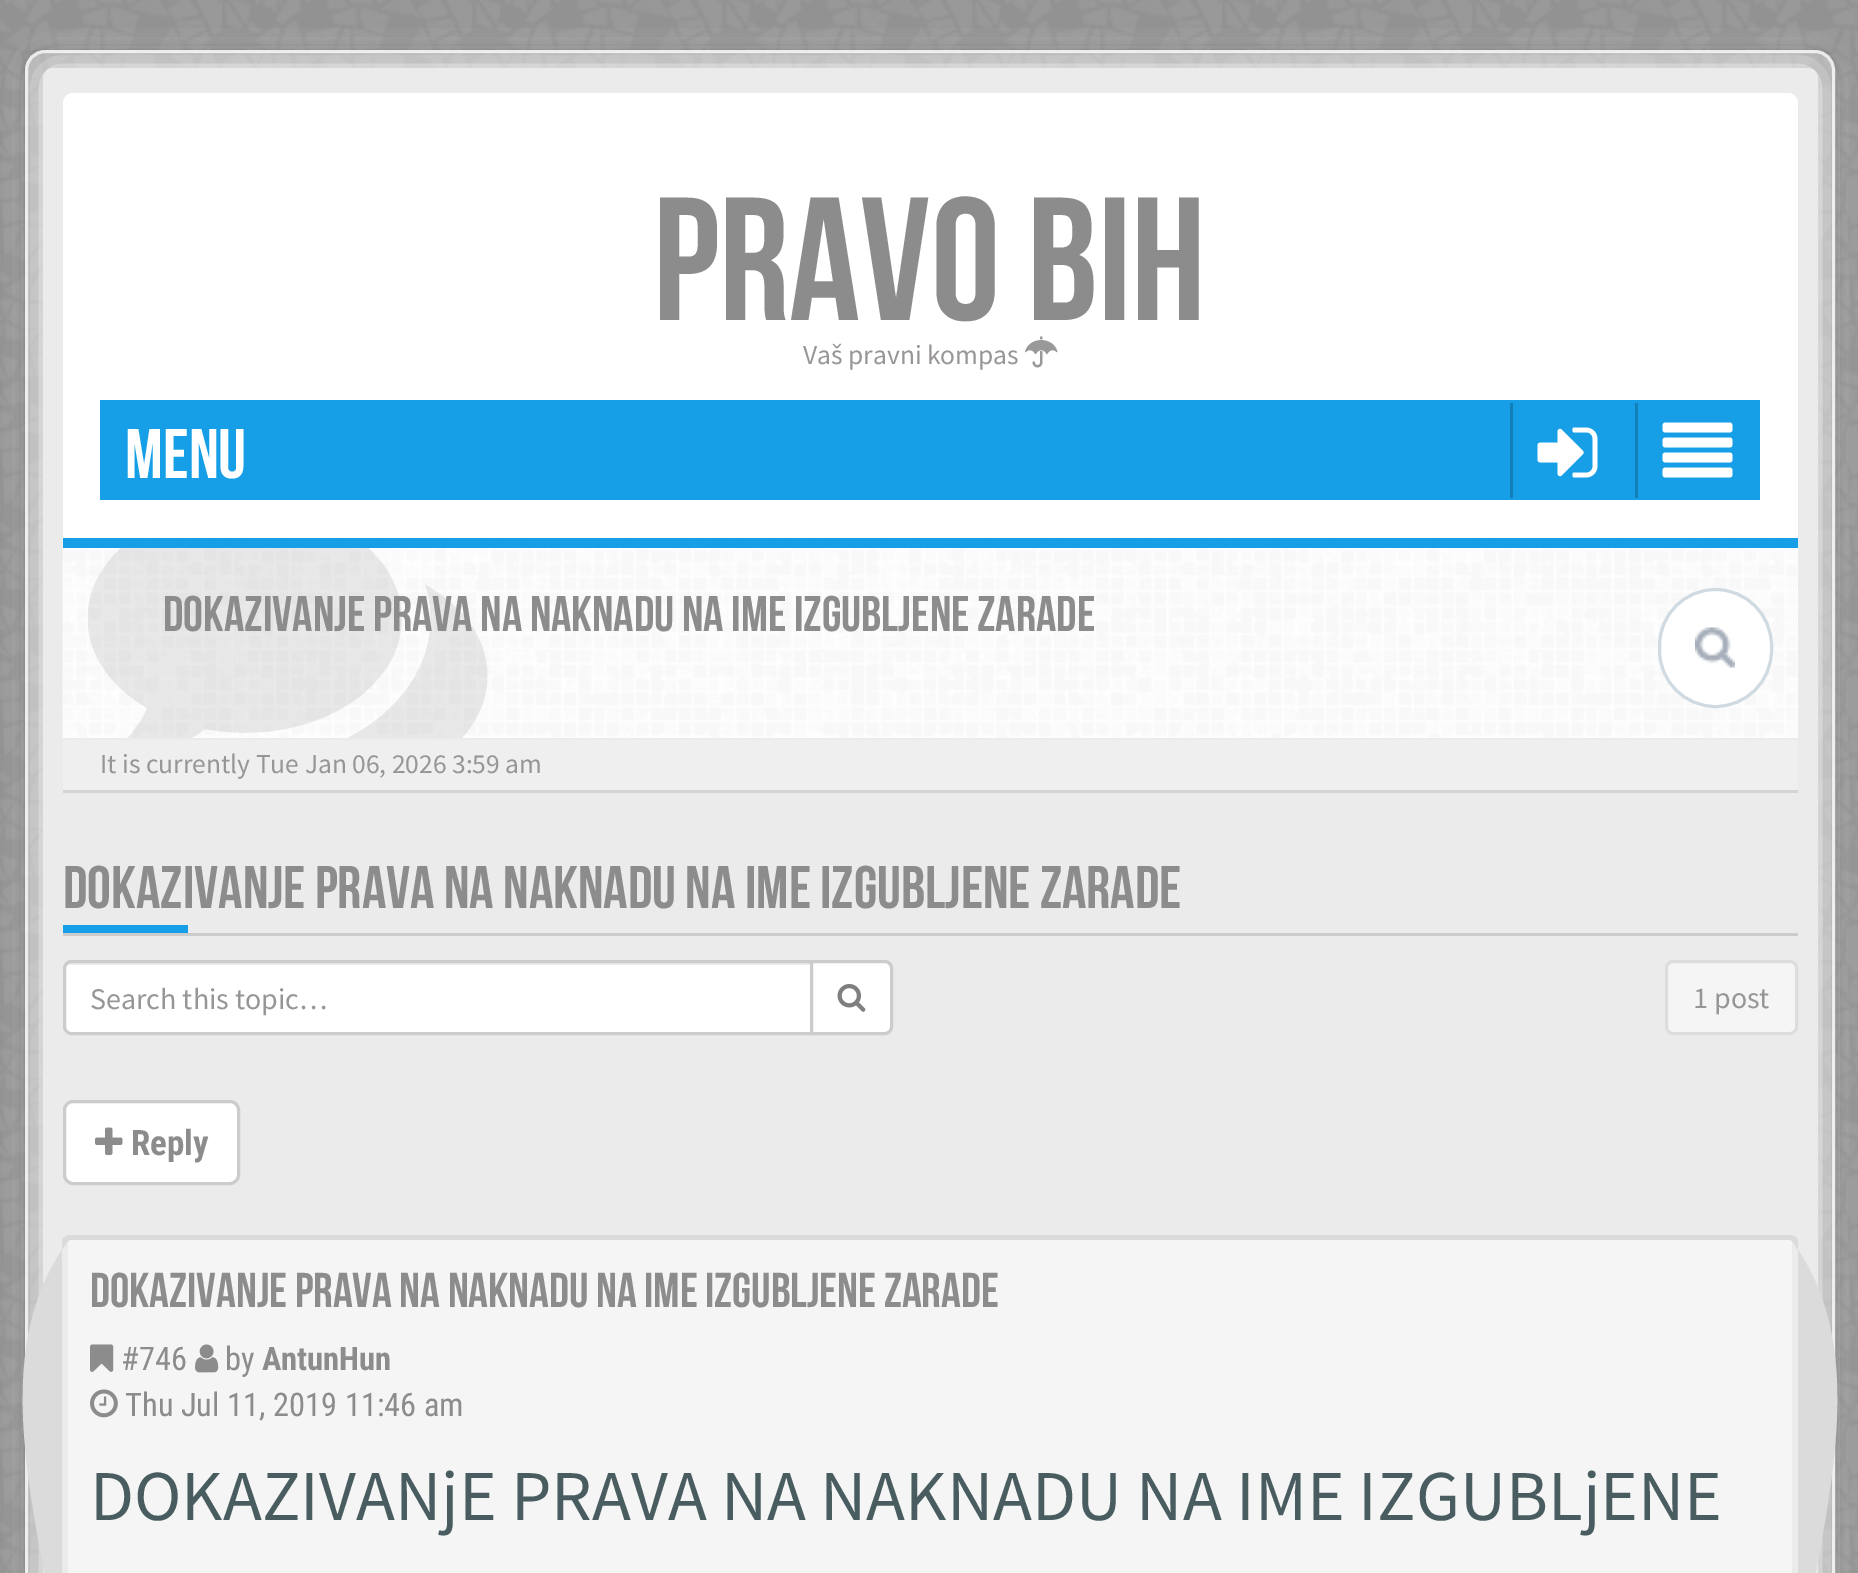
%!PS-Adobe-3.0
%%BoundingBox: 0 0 1858 1573
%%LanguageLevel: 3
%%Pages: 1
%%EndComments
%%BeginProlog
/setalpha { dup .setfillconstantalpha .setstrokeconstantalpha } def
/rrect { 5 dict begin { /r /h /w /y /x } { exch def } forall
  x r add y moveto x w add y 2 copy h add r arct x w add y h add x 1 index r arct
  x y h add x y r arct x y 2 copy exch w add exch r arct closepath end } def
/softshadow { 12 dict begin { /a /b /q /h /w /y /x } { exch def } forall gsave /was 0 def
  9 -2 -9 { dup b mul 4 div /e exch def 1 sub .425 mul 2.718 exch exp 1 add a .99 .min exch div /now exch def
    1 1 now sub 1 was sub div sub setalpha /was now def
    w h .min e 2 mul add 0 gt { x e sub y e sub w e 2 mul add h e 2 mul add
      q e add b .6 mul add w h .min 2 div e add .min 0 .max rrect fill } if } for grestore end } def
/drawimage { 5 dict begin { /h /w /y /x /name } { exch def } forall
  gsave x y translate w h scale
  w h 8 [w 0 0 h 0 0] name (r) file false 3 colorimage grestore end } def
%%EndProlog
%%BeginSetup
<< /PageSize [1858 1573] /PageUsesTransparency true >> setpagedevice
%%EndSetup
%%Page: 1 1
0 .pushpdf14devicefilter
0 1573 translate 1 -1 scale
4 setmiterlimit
0.6 setgray
0 0 1858 1573 rectfill
(images/1.raw) 0 0 1858 1573 drawimage
gsave
newpath 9 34 moveto 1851 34 lineto 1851 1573 lineto 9 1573 lineto closepath 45 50 moveto 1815 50 lineto 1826 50 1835 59 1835 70 curveto 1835 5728 lineto 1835 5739 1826 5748 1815 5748 curveto 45 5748 lineto 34 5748 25 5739 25 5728 curveto 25 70 lineto 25 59 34 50 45 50 curveto closepath eoclip newpath
0.196 setgray
25 50 1810 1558 20 5 0.5 softshadow
grestore
0.2 setalpha
1 setgray
25 50 1810 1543 20 rrect fill
0.75 setalpha
3 setlinewidth
26.5 51.5 1807 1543 18.5 rrect stroke
1 setalpha
43 68 1775 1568 10 17.5 1 softshadow
0.922 setgray
43 68 1775 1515 10 rrect fill
1 setgray
newpath 73 93 moveto 1788 93 lineto 1793.5 93 1798 97.5 1798 103 curveto 1798 538 lineto 63 538 lineto 63 103 lineto 63 97.5 67.5 93 73 93 curveto closepath fill
(images/2.raw) 1025 336 33 32 drawimage
0.086 0.624 0.902 setrgbcolor
100 400 1660 100 rectfill
0.071 0.498 0.722 setrgbcolor
1510 403 3 95 rectfill
(images/3.raw) 1537 427 61 51 drawimage
1635 403 3 95 rectfill
(images/4.raw) 1662 422 71 56 drawimage
1 setgray
63 548 1735 190 rectfill
(images/5.raw) 62 537 1736 201 drawimage
0.086 0.624 0.902 setrgbcolor
63 538 1735 10 rectfill
(images/6.raw) 88 548 400 190 drawimage
1 setgray
1658 588 115 120 57.5 rrect fill
(images/7.raw) 1695 627 40 41 drawimage
0.812 0.855 0.882 setrgbcolor
1659.5 589.5 112 117 56 rrect stroke
0.831 setgray
newpath 63 790 moveto 63 793 lineto 1798 793 lineto 1798 743 lineto 1798 790 lineto closepath fill
0.937 setgray
63 740 1735 50 rectfill
0.8 setgray
63 933 1735 3 rectfill
0.086 0.624 0.902 setrgbcolor
63 925 125 8 rectfill
1 setgray
newpath 71 960 moveto 813 960 lineto 813 1035 lineto 71 1035 lineto 66.5 1035 63 1031.5 63 1027 curveto 63 968 lineto 63 963.5 66.5 960 71 960 curveto closepath fill
0.925 setgray
newpath 70 965 moveto 810 965 lineto 810 963 lineto 70 963 lineto 67 963 65 965 65 968 curveto 65 970 lineto 65 967 67 965 70 965 curveto closepath fill
0.8 setgray
newpath 71 961.5 moveto 811.5 961.5 lineto 811.5 1033.5 lineto 71 1033.5 lineto 67.5 1033.5 64.5 1030.5 64.5 1027 curveto 64.5 968 lineto 64.5 964.5 67.5 961.5 71 961.5 curveto closepath stroke
1 setgray
newpath 811.5 961.5 moveto 885 961.5 lineto 888.5 961.5 891.5 964.5 891.5 968 curveto 891.5 1027 lineto 891.5 1030.5 888.5 1033.5 885 1033.5 curveto 811.5 1033.5 lineto closepath gsave fill grestore
0.8 setgray
stroke
(images/8.raw) 837 983 29 29 drawimage
0.961 setgray
1666.5 961.5 130 72 6.5 rrect gsave fill grestore
0.867 setgray
stroke
1 setgray
64.5 1101.5 174 82 8.5 rrect gsave fill grestore
0.8 setgray
stroke
(images/9.raw) 95 1127 28 28 drawimage
0.961 setgray
newpath 70 1240 moveto 1790 1240 lineto 1791 1240 1792 1241 1792 1242 curveto 1792 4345 lineto 1792 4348 1791 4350 1790 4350 curveto 70 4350 lineto 69 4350 68 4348 68 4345 curveto 68 1242 lineto 68 1241 69 1240 70 1240 curveto closepath fill
0.859 setgray
newpath 70 1235 moveto 68 1235 66 1236 64 1237 curveto 68 1241 lineto 70 1240 lineto 1790 1240 lineto 1792 1241 lineto 1796 1237 lineto 1794 1236 1792 1235 1790 1235 curveto closepath fill
newpath 1798 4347 moveto 1797 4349 1796 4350 1794 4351 curveto 1791 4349 lineto 1792 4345 lineto 1792 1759 lineto 1792 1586 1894 1380 1792 1241 curveto 1796 1237 lineto 1798 1240 lineto closepath fill
newpath 62 1240 moveto 64 1237 lineto 68 1241 lineto -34 1380 68 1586 68 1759 curveto 68 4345 lineto 69 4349 lineto 66 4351 lineto 64 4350 63 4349 62 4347 curveto closepath fill
(images/10.raw) 90 1344 24 28 drawimage
(images/11.raw) 195 1344 24 29 drawimage
(images/12.raw) 90 1389 28 29 drawimage
/BebasNeue-Regular [175 0 0 -175 0 0] selectfont
0.549 setgray
653 320 moveto (PRAVO BIH) show
/SourceSansPro-Regular [27.5 0 0 -27.5 0 0] selectfont
0.592 0.584 0.584 setrgbcolor
803 364 moveto (Vaš pravni kompas) show
/BebasNeue-Regular [70 0 0 -70 0 0] selectfont
1 setgray
125 478 moveto (MENU) show
/BebasNeue-Regular [50 0 0 -50 0 0] selectfont
0.549 setgray
163 631 moveto (DOKAZIVANJE PRAVA NA NAKNADU NA IME IZGUBLJENE ZARADE) show
/SourceSansPro-Regular [27.5 0 0 -27.5 0 0] selectfont
0.592 0.584 0.584 setrgbcolor
100 773 moveto (It is currently Tue Jan 06, 2026 3:59 am) show
/BebasNeue-Regular [60 0 0 -60 0 0] selectfont
0.549 setgray
63 908 moveto (DOKAZIVANJE PRAVA NA NAKNADU NA IME IZGUBLJENE ZARADE) show
/SourceSansPro-Regular [30 0 0 -30 0 0] selectfont
0.592 0.584 0.584 setrgbcolor
90 1009 moveto (Search this topic…) show
1693 1008 moveto (1 post) show
/RobotoCondensed-Bold [35 0 0 -35 0 0] selectfont
0.549 setgray
131 1155 moveto (Reply) show
/BebasNeue-Regular [48.75 0 0 -48.75 0 0] selectfont
90 1307 moveto (Dokazivanje prava na naknadu na ime izgubljene zarade) show
/RobotoCondensed-Regular [32.5 0 0 -32.5 0 0] selectfont
121 1370 moveto (#746) show
225 1370 moveto (by) show
/RobotoCondensed-Bold [32.5 0 0 -32.5 0 0] selectfont
262 1370 moveto (AntunHun) show
/RobotoCondensed-Regular [32.5 0 0 -32.5 0 0] selectfont
125 1416 moveto (Thu Jul 11, 2019 11:46 am) show
/SourceSansPro-Regular [71.5 0 0 -71.5 0 0] selectfont
0.286 0.365 0.376 setrgbcolor
90 1520 moveto (DOKAZIVANjE PRAVA NA NAKNADU NA IME IZGUBLjENE) show
.poppdf14devicefilter showpage
%%EOF
